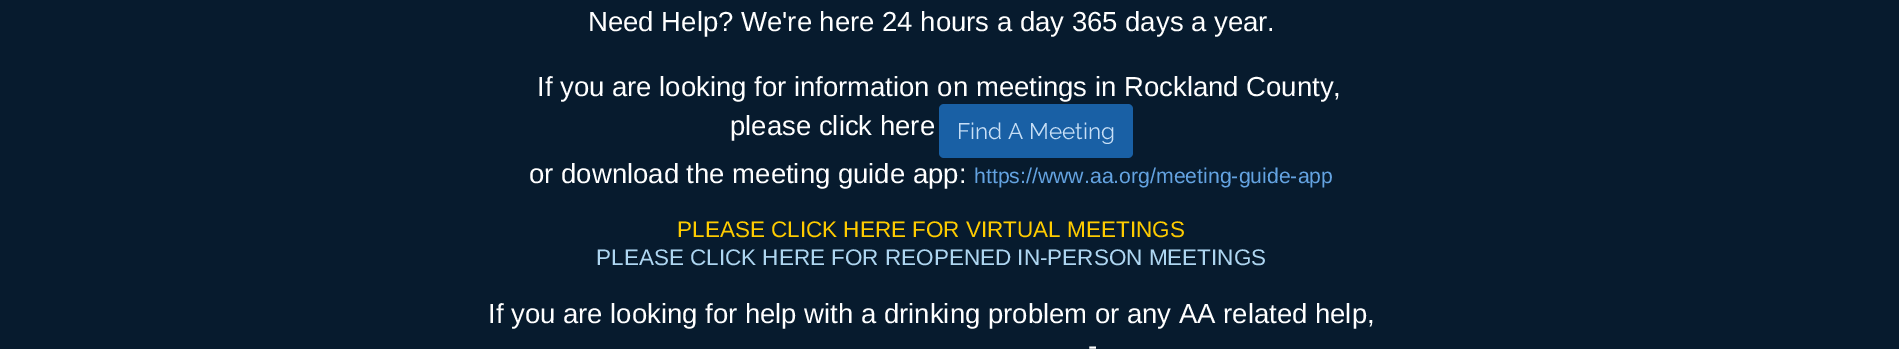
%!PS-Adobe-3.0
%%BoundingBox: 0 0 1899 349
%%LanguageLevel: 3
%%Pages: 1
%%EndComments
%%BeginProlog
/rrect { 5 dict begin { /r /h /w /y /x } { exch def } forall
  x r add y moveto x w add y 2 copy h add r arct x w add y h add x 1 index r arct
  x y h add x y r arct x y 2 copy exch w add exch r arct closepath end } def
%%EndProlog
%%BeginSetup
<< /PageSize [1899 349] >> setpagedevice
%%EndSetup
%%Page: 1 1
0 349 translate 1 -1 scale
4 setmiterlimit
0.027 0.106 0.18 setrgbcolor
0 0 1899 349 rectfill
0.098 0.376 0.647 setrgbcolor
939 104 194 54 5 rrect fill
/LiberationSans-Regular [27.5 0 0 -27.5 0 0] selectfont
1 setgray
588 31 moveto (Need Help? We're here 24 hours a day 365 days a year.) show
537 96 moveto (If you are looking for information on meetings in Rockland County,) show
730 135 moveto (please click here) show
/Raleway-Regular [22.5 0 0 -22.5 0 0] selectfont
0.78 0.875 0.965 setrgbcolor
957 139 moveto (Find A Meeting) show
/LiberationSans-Regular [27.5 0 0 -27.5 0 0] selectfont
1 setgray
529 183 moveto (or download the meeting guide app:) show
/LiberationSans-Regular [21.25 0 0 -21.25 0 0] selectfont
0.392 0.639 0.882 setrgbcolor
974 183 moveto (https://www.aa.org/meeting-guide-app) show
/LiberationSans-Regular [22.5 0 0 -22.5 0 0] selectfont
1 0.8 0 setrgbcolor
677 237 moveto (PLEASE CLICK HERE FOR VIRTUAL MEETINGS) show
0.682 0.839 0.945 setrgbcolor
596 265 moveto (PLEASE CLICK HERE FOR REOPENED IN-PERSON MEETINGS) show
/LiberationSans-Regular [27.5 0 0 -27.5 0 0] selectfont
1 setgray
488 323 moveto (If you are looking for help with a drinking problem or any AA related help,) show
1088 355 moveto (-) show
showpage
%%EOF
